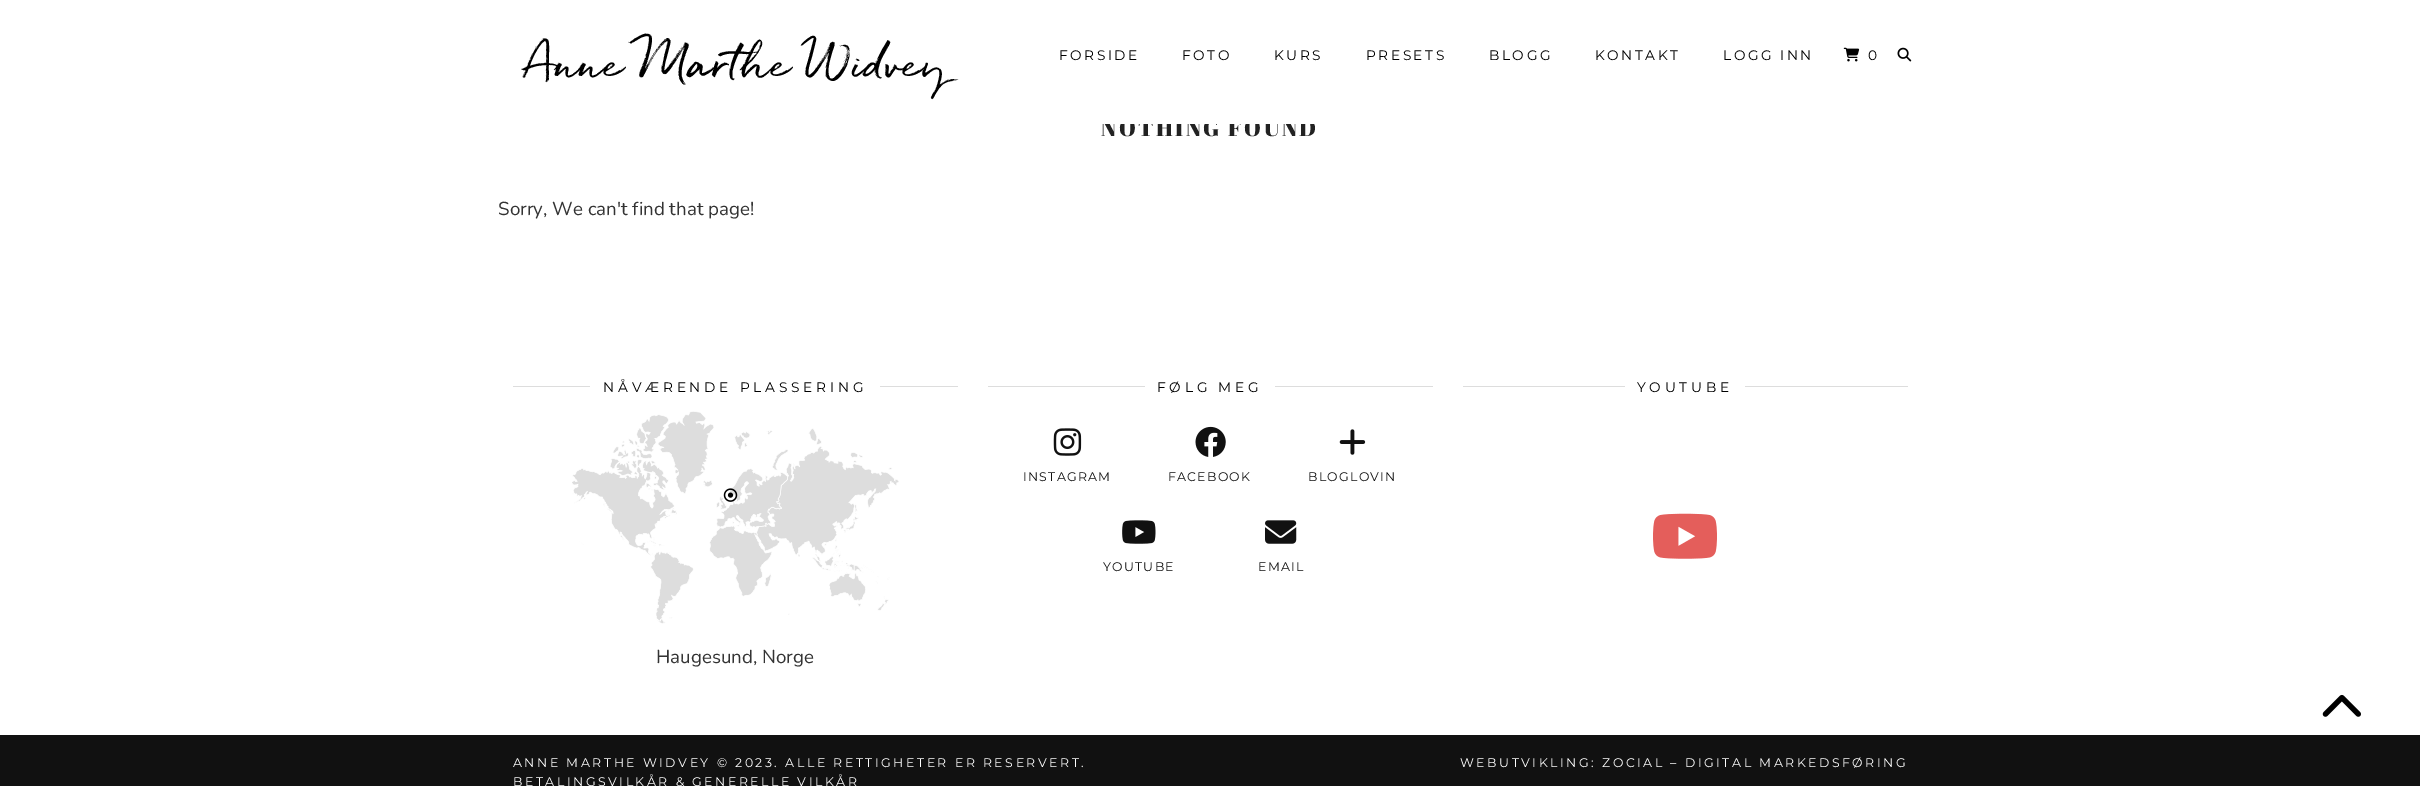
%!PS-Adobe-3.0
%%BoundingBox: 0 0 2420 786
%%LanguageLevel: 3
%%Pages: 1
%%EndComments
%%BeginProlog
/drawimage { 5 dict begin { /h /w /y /x /name } { exch def } forall
  gsave x y translate w h scale
  w h 8 [w 0 0 h 0 0] name (r) file false 3 colorimage grestore end } def
%%EndProlog
%%BeginSetup
<< /PageSize [2420 786] >> setpagedevice
%%EndSetup
%%Page: 1 1
0 786 translate 1 -1 scale
4 setmiterlimit
1 setgray
0 0 2420 786 rectfill
(images/1.raw) 1843 47 17 15 drawimage
(images/2.raw) 1897 47 15 15 drawimage
0.867 setgray
513 386 445 1 rectfill
1 setgray
590 386 290 1 rectfill
(images/3.raw) 572 411 327 213 drawimage
0.867 setgray
988 386 445 1 rectfill
1 setgray
1145 386 130 1 rectfill
(images/4.raw) 1053 428 29 28 drawimage
(images/5.raw) 1195 426 31 31 drawimage
(images/6.raw) 1339 429 27 26 drawimage
(images/7.raw) 1122 520 34 24 drawimage
(images/8.raw) 1265 520 32 24 drawimage
0.867 setgray
1463 386 445 1 rectfill
1 setgray
1625 386 120 1 rectfill
(images/9.raw) 1653 513 64 46 drawimage
(images/10.raw) 2322 694 39 23 drawimage
0.067 setgray
0 735 2420 51 rectfill
/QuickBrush-Regular [42.5 0 0 -42.5 0 0] selectfont
0 setgray
525 76 moveto (Anne Marthe Widvey) show
/Montserrat-Thin [13.75 0 0 -13.75 0 0] selectfont
1059 60 moveto 2.5 0 (FORSIDE) ashow
1182 60 moveto 2.5 0 (FOTO) ashow
1274 60 moveto 2.5 0 (KURS) ashow
1366 60 moveto 2.5 0 (PRESETS) ashow
1489 60 moveto 2.5 0 (BLOGG) ashow
1595 60 moveto 2.5 0 (KONTAKT) ashow
1723 60 moveto 2.5 0 (LOGG INN) ashow
1868 60 moveto 2.5 0 (0) ashow
/AbrilFatface-Regular [22.5 0 0 -22.5 0 0] selectfont
0.133 setgray
1101 136 moveto 2.5 0 (NOTHING FOUND) ashow
1 setgray
1101 120 214 4 rectfill
/Nunito-ExtraLight [18.75 0 0 -18.75 0 0] selectfont
0.2 setgray
498 215 moveto (Sorry, We can't find that page!) show
/Montserrat-Thin [13.75 0 0 -13.75 0 0] selectfont
0 setgray
603 392 moveto 3.75 0 (NÅVÆRENDE PLASSERING) ashow
/Nunito-ExtraLight [18.75 0 0 -18.75 0 0] selectfont
0.2 setgray
656 663 moveto (Haugesund, Norge) show
/Montserrat-Thin [13.75 0 0 -13.75 0 0] selectfont
0 setgray
1157 392 moveto 3.75 0 (FØLG MEG) ashow
/Montserrat-Thin [12.5 0 0 -12.5 0 0] selectfont
0.067 setgray
1023 481 moveto 1.25 0 (INSTAGRAM) ashow
1168 481 moveto 1.25 0 (FACEBOOK) ashow
1308 481 moveto 1.25 0 (BLOGLOVIN) ashow
1103 571 moveto 1.25 0 (YOUTUBE) ashow
1258 571 moveto 1.25 0 (EMAIL) ashow
/Montserrat-Thin [13.75 0 0 -13.75 0 0] selectfont
0 setgray
1637 392 moveto 3.75 0 (YOUTUBE) ashow
/Montserrat-Thin [12.5 0 0 -12.5 0 0] selectfont
1 setgray
513 767 moveto 2.5 0 (ANNE MARTHE WIDVEY © 2023. ALLE RETTIGHETER ER RESERVERT.) ashow
513 786 moveto 2.5 0 (BETALINGSVILKÅR & GENERELLE VILKÅR) ashow
1460 767 moveto 2.5 0 (WEBUTVIKLING: ZOCIAL – DIGITAL MARKEDSFØRING) ashow
showpage
%%EOF
